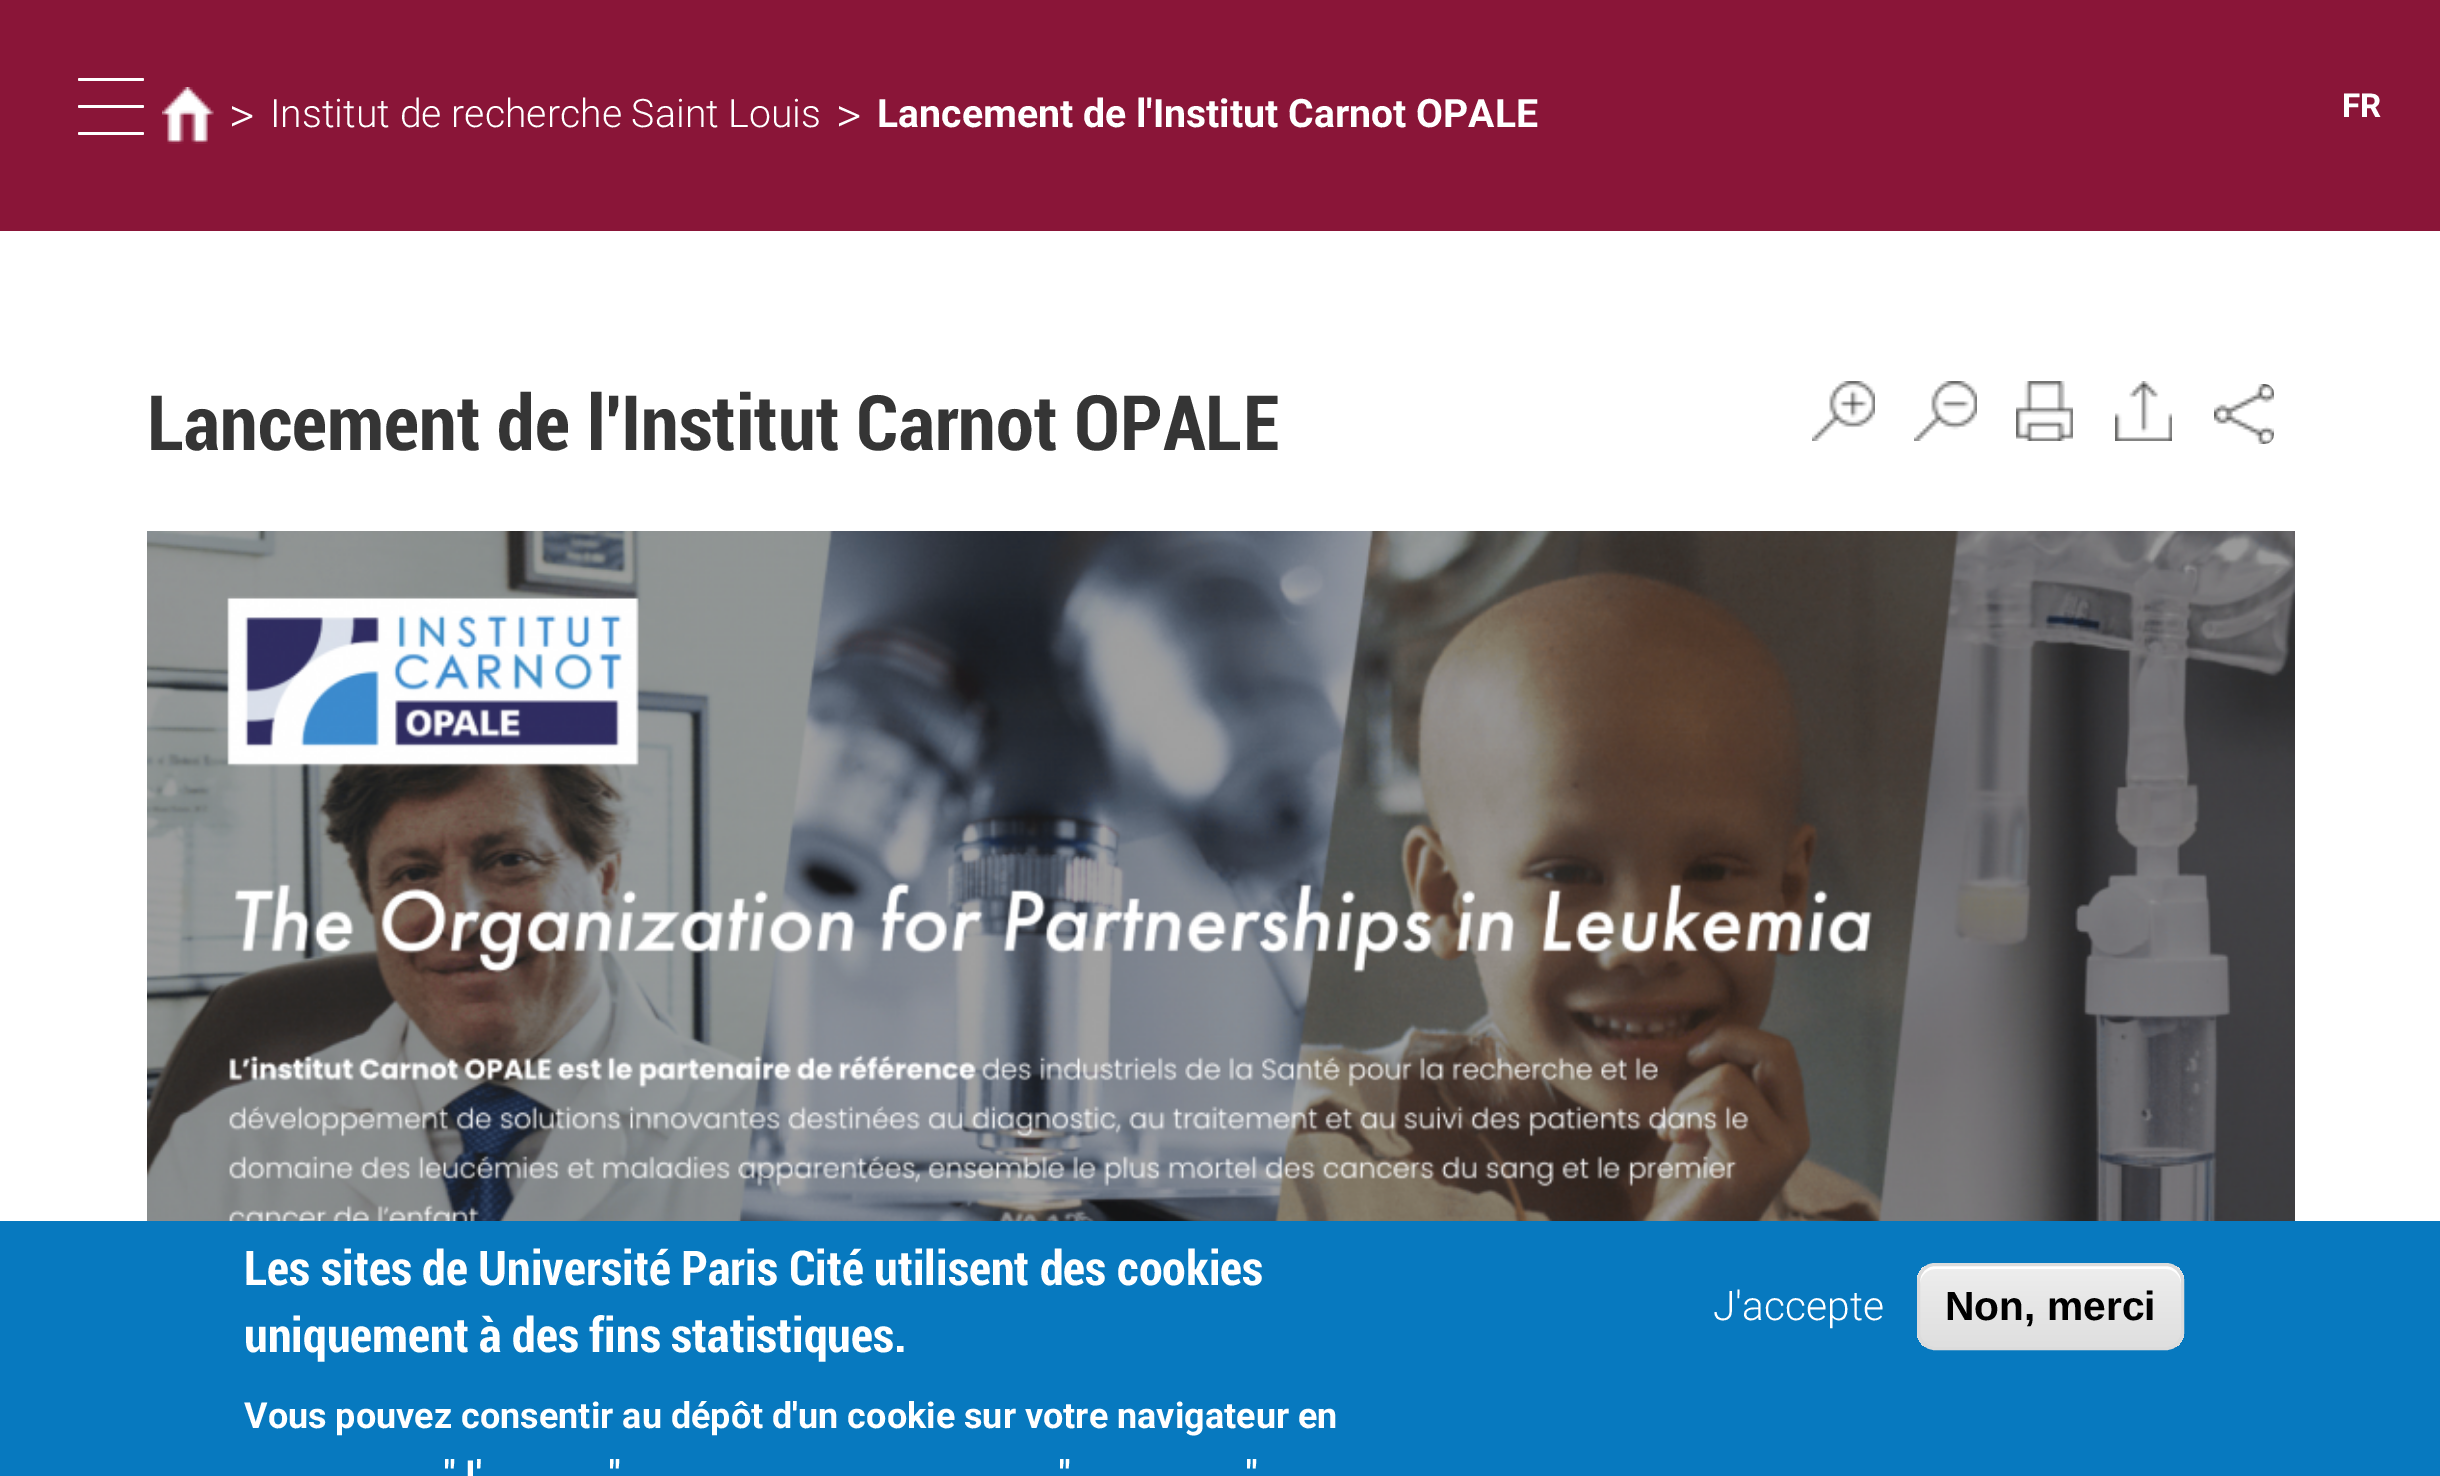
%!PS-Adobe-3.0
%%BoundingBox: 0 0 2440 1476
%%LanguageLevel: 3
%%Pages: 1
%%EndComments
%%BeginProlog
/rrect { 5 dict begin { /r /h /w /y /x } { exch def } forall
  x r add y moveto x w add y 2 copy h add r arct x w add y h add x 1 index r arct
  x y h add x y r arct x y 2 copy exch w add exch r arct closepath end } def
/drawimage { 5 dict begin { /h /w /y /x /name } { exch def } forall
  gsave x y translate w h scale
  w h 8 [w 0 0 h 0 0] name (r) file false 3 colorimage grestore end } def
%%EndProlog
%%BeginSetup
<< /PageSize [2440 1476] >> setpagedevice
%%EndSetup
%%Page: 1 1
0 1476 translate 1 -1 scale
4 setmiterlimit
1 setgray
0 0 2440 1476 rectfill
0.541 0.082 0.22 setrgbcolor
0 0 2440 231 rectfill
1 setgray
78 78 66 3 1.5 rrect fill
78 105 66 3 1.5 rrect fill
78 132 66 3 1.5 rrect fill
(images/1.raw) 162 87 52 57 drawimage
(images/2.raw) 1812 381 63 60 drawimage
(images/3.raw) 1914 381 63 60 drawimage
(images/4.raw) 2016 381 57 60 drawimage
(images/5.raw) 2115 381 57 60 drawimage
(images/6.raw) 2214 384 60 60 drawimage
(images/7.raw) 147 531 2148 690 drawimage
0.027 0.475 0.749 setrgbcolor
0 1221 2440 255 rectfill
gsave
1917 1263 267 87 18 rrect clip newpath
gsave newpath 1917 1266 moveto 2184 1266 lineto 2184 1347 lineto 1917 1347 lineto closepath clip newpath
<< /ShadingType 2 /ColorSpace /DeviceRGB /Coords [2051 1266 2051 1347] /Extend [true true] /Function << /FunctionType 3 /Domain [0 1] /Functions [<< /FunctionType 2 /Domain [0 1] /C0 [0.929 0.929 0.929] /C1 [0.929 0.929 0.929] /N 1 >> << /FunctionType 2 /Domain [0 1] /C0 [0.929 0.929 0.929] /C1 [0.875 0.875 0.875] /N 1 >>] /Bounds [0.05] /Encode [0 1 0 1] >> >> shfill grestore
grestore
1 setgray
newpath 1935 1269 moveto 2166 1269 lineto 2174 1269 2181 1276 2181 1284 curveto 2181 1281 lineto 2181 1273 2174 1266 2166 1266 curveto 1935 1266 lineto 1927 1266 1920 1273 1920 1281 curveto 1920 1284 lineto 1920 1276 1927 1269 1935 1269 curveto closepath fill
0.863 setgray
3 setlinewidth
1918.5 1264.5 264 84 16.5 rrect stroke
/Roboto-Light [49 0 0 -49 0 0] selectfont
1 setgray
229 132 moveto (>) show
/Roboto-Light [39.2 0 0 -39.2 0 0] selectfont
270 127 moveto (Institut de recherche Saint Louis) show
/Roboto-Light [49 0 0 -49 0 0] selectfont
836 132 moveto (>) show
/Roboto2-Bold [39.2 0 0 -39.2 0 0] selectfont
877 127 moveto (Lancement de l'Institut Carnot OPALE) show
/Roboto2-Bold [33 0 0 -33 0 0] selectfont
2342 117 moveto (FR) show
/Roboto-Bold [76.5 0 0 -76.5 0 0] selectfont
0.208 setgray
147 450 moveto (Lancement de l'Institut Carnot OPALE) show
/Roboto-Bold [48 0 0 -48 0 0] selectfont
1 setgray
244 1285 moveto (Les sites de Université Paris Cité utilisent des cookies) show
244 1352 moveto (uniquement à des fins statistiques.) show
/Roboto2-Bold [36 0 0 -36 0 0] selectfont
244 1428 moveto (Vous pouvez consentir au dépôt d'un cookie sur votre navigateur en) show
444 1486 moveto ("J') show
609 1486 moveto (") show
1059 1486 moveto (") show
1246 1486 moveto (") show
/Roboto-Light [40.75 0 0 -40.75 0 0] selectfont
1713 1320 moveto (J'accepte) show
/LiberationSans-Bold [40.75 0 0 -40.75 0 0] selectfont
0 setgray
1945 1320 moveto (Non, merci) show
showpage
%%EOF
